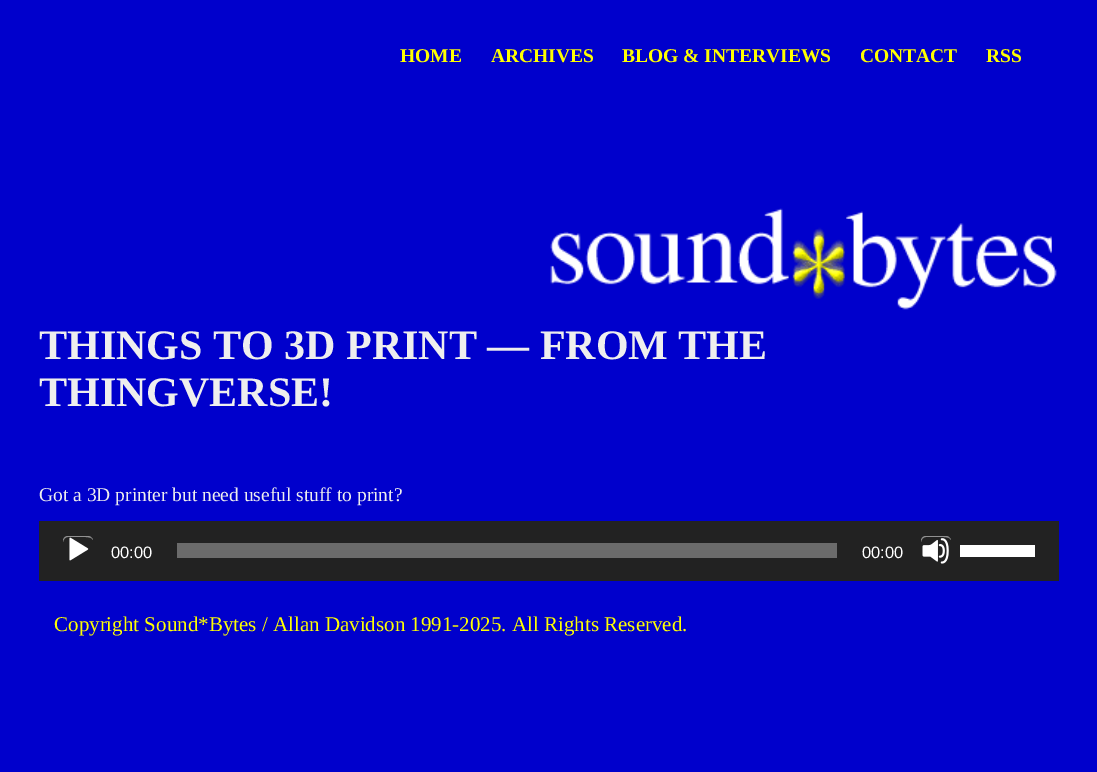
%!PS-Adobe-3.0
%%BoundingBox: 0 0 1097 772
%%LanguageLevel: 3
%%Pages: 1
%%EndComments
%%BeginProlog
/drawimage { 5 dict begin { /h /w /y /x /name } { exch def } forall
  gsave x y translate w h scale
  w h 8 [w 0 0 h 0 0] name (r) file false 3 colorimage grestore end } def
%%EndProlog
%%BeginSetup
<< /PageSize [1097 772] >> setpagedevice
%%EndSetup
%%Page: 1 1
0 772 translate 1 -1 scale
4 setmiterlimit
0 0 0.8 setrgbcolor
0 0 1097 772 rectfill
(images/1.raw) 550 208 507 102 drawimage
0.133 setgray
39 521 1020 60 rectfill
(images/2.raw) 69 537 20 24 drawimage
0.569 setgray
newpath 68 537 moveto 85 537 lineto 90 537 92 538 93 540 curveto 92.5 538 90.5 536 88 536 curveto 68 536 lineto 65 536 63 538 63 541 curveto 63 542 lineto 63.5 539.5 65 537 68 537 curveto closepath fill
0.42 setgray
177 543 660 15 rectfill
(images/3.raw) 922 538 27 26 drawimage
0.569 setgray
newpath 926 537 moveto 943 537 lineto 948 537 950 538 951 540 curveto 950.5 538 948.5 536 946 536 curveto 926 536 lineto 923 536 921 538 921 541 curveto 921 542 lineto 921.5 539.5 923 537 926 537 curveto closepath fill
1 setgray
960 545 75 12 rectfill
/LiberationSerif-Bold [19.5 0 0 -19.5 0 0] selectfont
1 1 0 setrgbcolor
400 62 moveto (HOME) show
491 62 moveto (ARCHIVES) show
622 62 moveto (BLOG & INTERVIEWS) show
860 62 moveto (CONTACT) show
986 62 moveto (RSS) show
/LiberationSerif-Bold [42 0 0 -42 0 0] selectfont
0.933 setgray
39 359 moveto (THINGS TO 3D PRINT — FROM THE) show
39 406 moveto (THINGVERSE!) show
/LiberationSerif-Regular [19.5 0 0 -19.5 0 0] selectfont
39 501 moveto (Got a 3D printer but need useful stuff to print?) show
/LiberationSans-Regular [16.5 0 0 -16.5 0 0] selectfont
1 setgray
111 558 moveto (00:00) show
862 558 moveto (00:00) show
/LiberationSerif-Regular [21 0 0 -21 0 0] selectfont
1 1 0 setrgbcolor
54 631 moveto (Copyright Sound*Bytes / Allan Davidson 1991-2025. All Rights Reserved.) show
showpage
%%EOF
